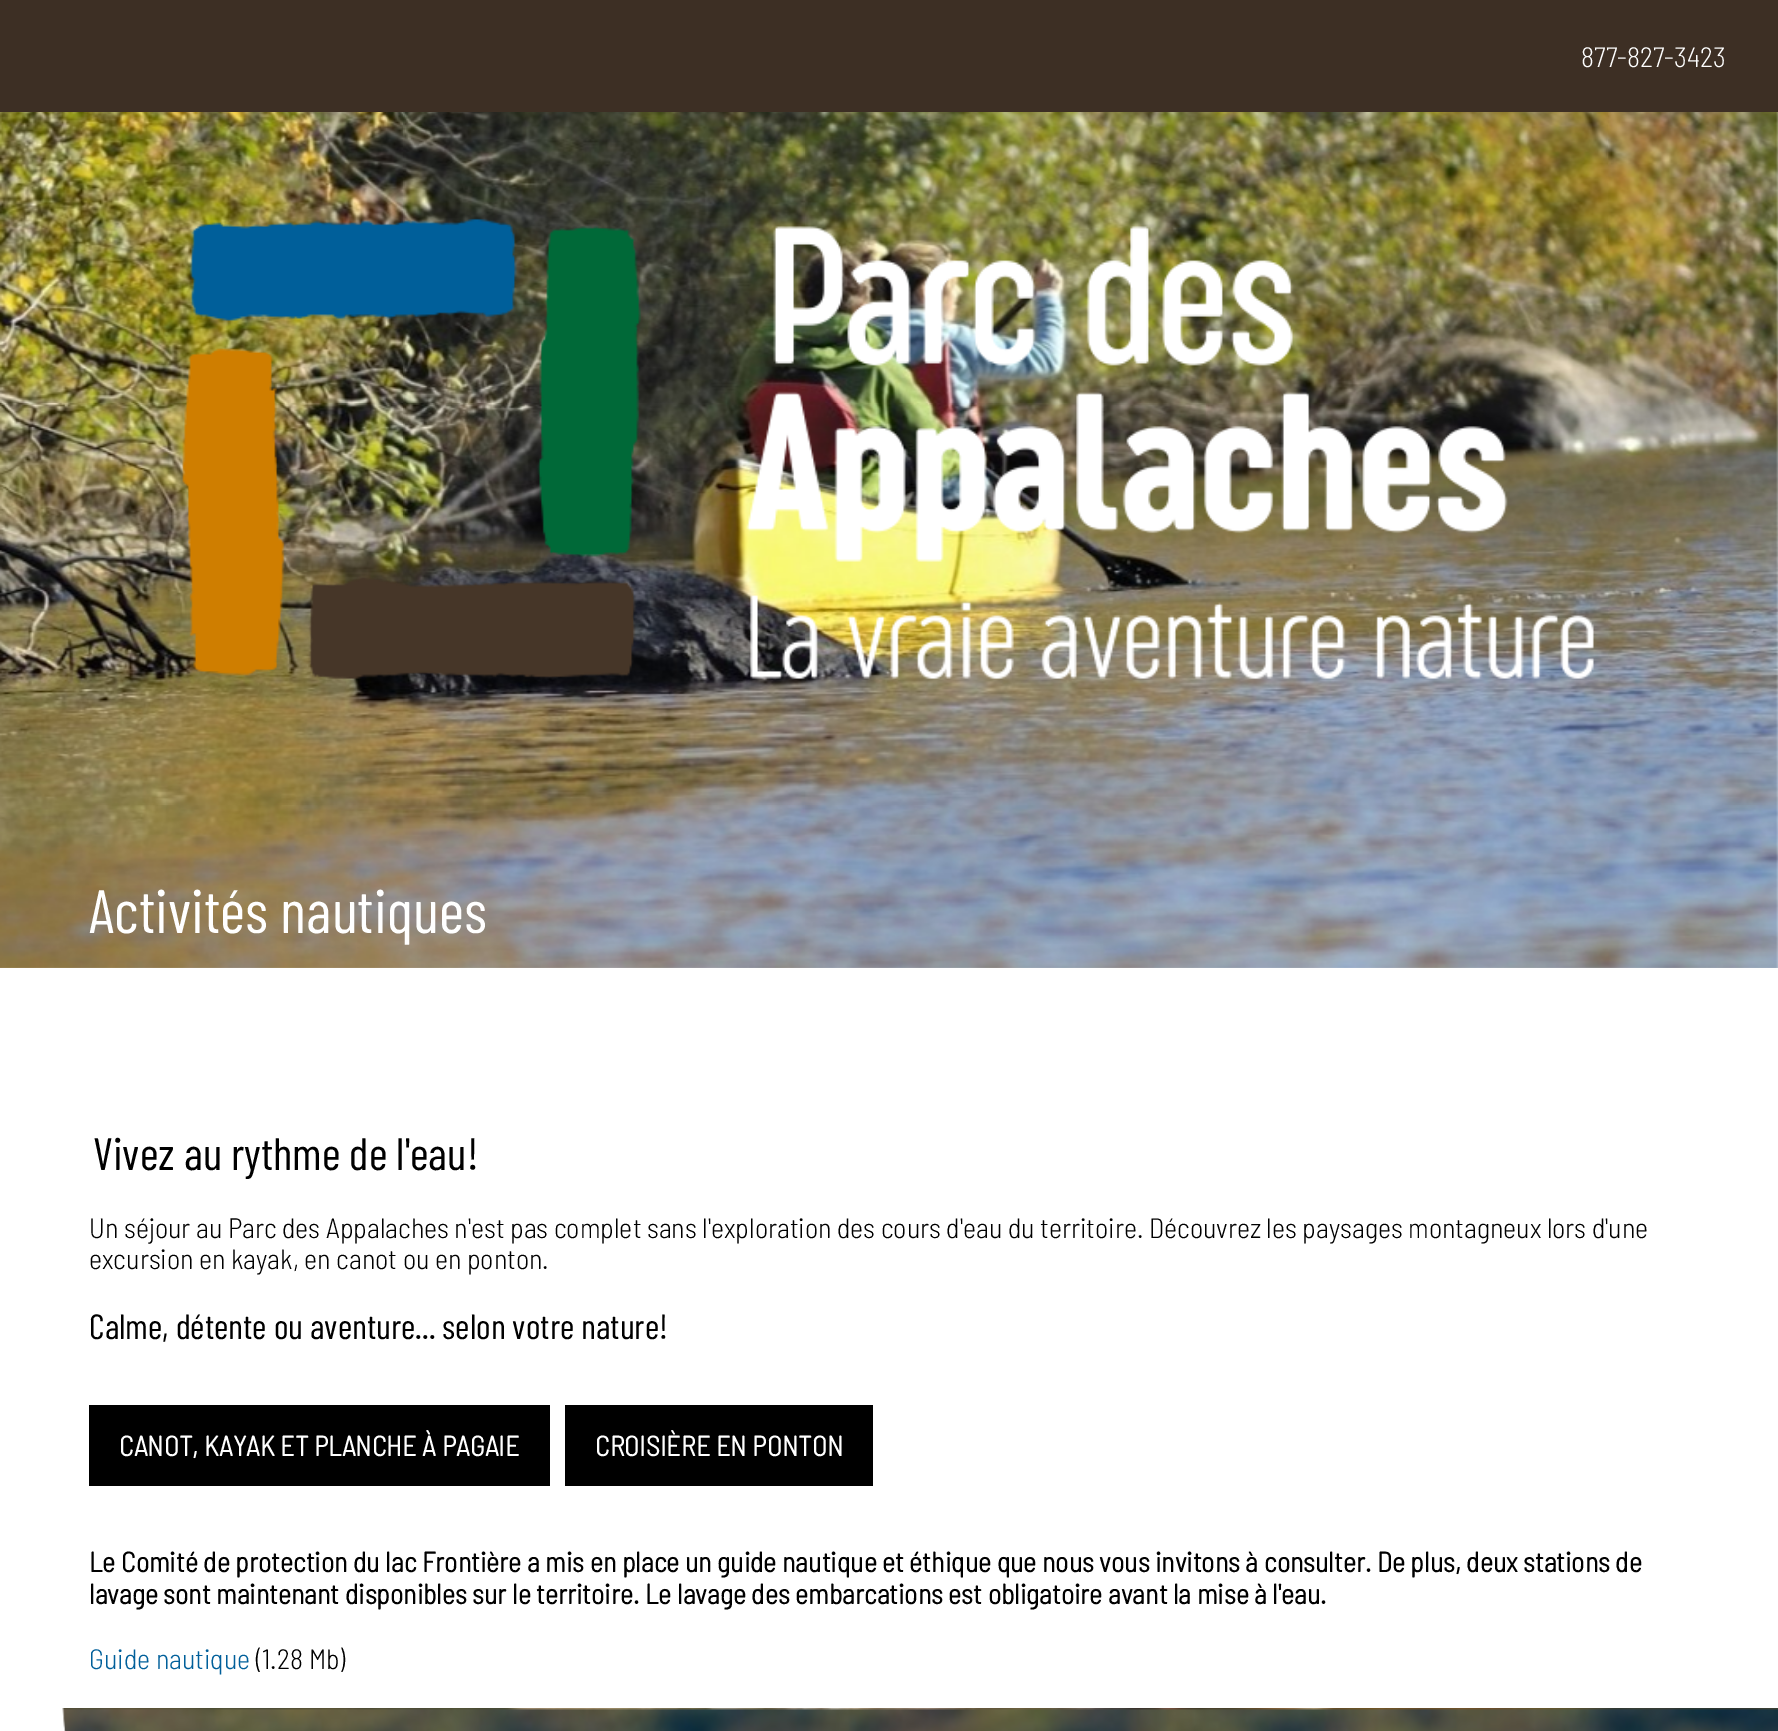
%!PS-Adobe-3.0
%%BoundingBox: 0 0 1778 1731
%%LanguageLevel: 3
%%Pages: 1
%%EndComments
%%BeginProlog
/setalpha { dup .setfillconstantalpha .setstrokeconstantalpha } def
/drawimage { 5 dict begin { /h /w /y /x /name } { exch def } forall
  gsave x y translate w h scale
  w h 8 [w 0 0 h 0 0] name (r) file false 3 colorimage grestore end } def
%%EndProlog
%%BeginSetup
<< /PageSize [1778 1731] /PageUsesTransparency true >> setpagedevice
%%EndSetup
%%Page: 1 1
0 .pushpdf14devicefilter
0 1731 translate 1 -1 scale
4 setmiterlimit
1 setgray
0 0 1778 1731 rectfill
0.239 0.184 0.141 setrgbcolor
0 0 1778 112 rectfill
(images/1.raw) 0 112 1778 856 drawimage
(images/2.raw) 182 218 1412 461 drawimage
0.06 setalpha
1 setgray
0 967 1778 1 rectfill
1 setalpha
0 setgray
89 1405 461 81 rectfill
565 1405 308 81 rectfill
(images/3.raw) 62 1708 1716 23 drawimage
(images/4.raw) 0 1708 66 23 drawimage
/BarlowSemiCondensed-Light [28 0 0 -28 0 0] selectfont
1 setgray
1581 67 moveto (877-827-3423) show
/BarlowCondensed-Regular [61.25 0 0 -61.25 0 0] selectfont
89 933 moveto (Activités nautiques) show
/BarlowCondensed-Regular [45.5 0 0 -45.5 0 0] selectfont
0 setgray
93 1170 moveto (Vivez au rythme de l'eau!) show
/BarlowSemiCondensed-Light [28 0 0 -28 0 0] selectfont
89 1238 moveto (Un séjour au Parc des Appalaches n'est pas complet sans l'exploration des cours d'eau du territoire. Découvrez les paysages montagneux lors d'une) show
89 1269 moveto (excursion en kayak, en canot ou en ponton.) show
/BarlowCondensed-Regular [35 0 0 -35 0 0] selectfont
89 1339 moveto (Calme, détente ou aventure... selon votre nature!) show
/BarlowSemiCondensed-Bold [28 0 0 -28 0 0] selectfont
1 setgray
119 1456 moveto (CANOT, KAYAK ET PLANCHE À PAGAIE) show
595 1456 moveto (CROISIÈRE EN PONTON) show
0 setgray
89 1572 moveto (Le Comité de protection du lac Frontière a mis en place un guide nautique et éthique que nous vous invitons à consulter. De plus, deux stations de) show
89 1604 moveto (lavage sont maintenant disponibles sur le territoire. Le lavage des embarcations est obligatoire avant la mise à l'eau.) show
/BarlowSemiCondensed-Light [28 0 0 -28 0 0] selectfont
0 0.373 0.604 setrgbcolor
89 1669 moveto (Guide nautique) show
0 setgray
256 1669 moveto (\(1.28 Mb\)) show
.poppdf14devicefilter showpage
%%EOF
